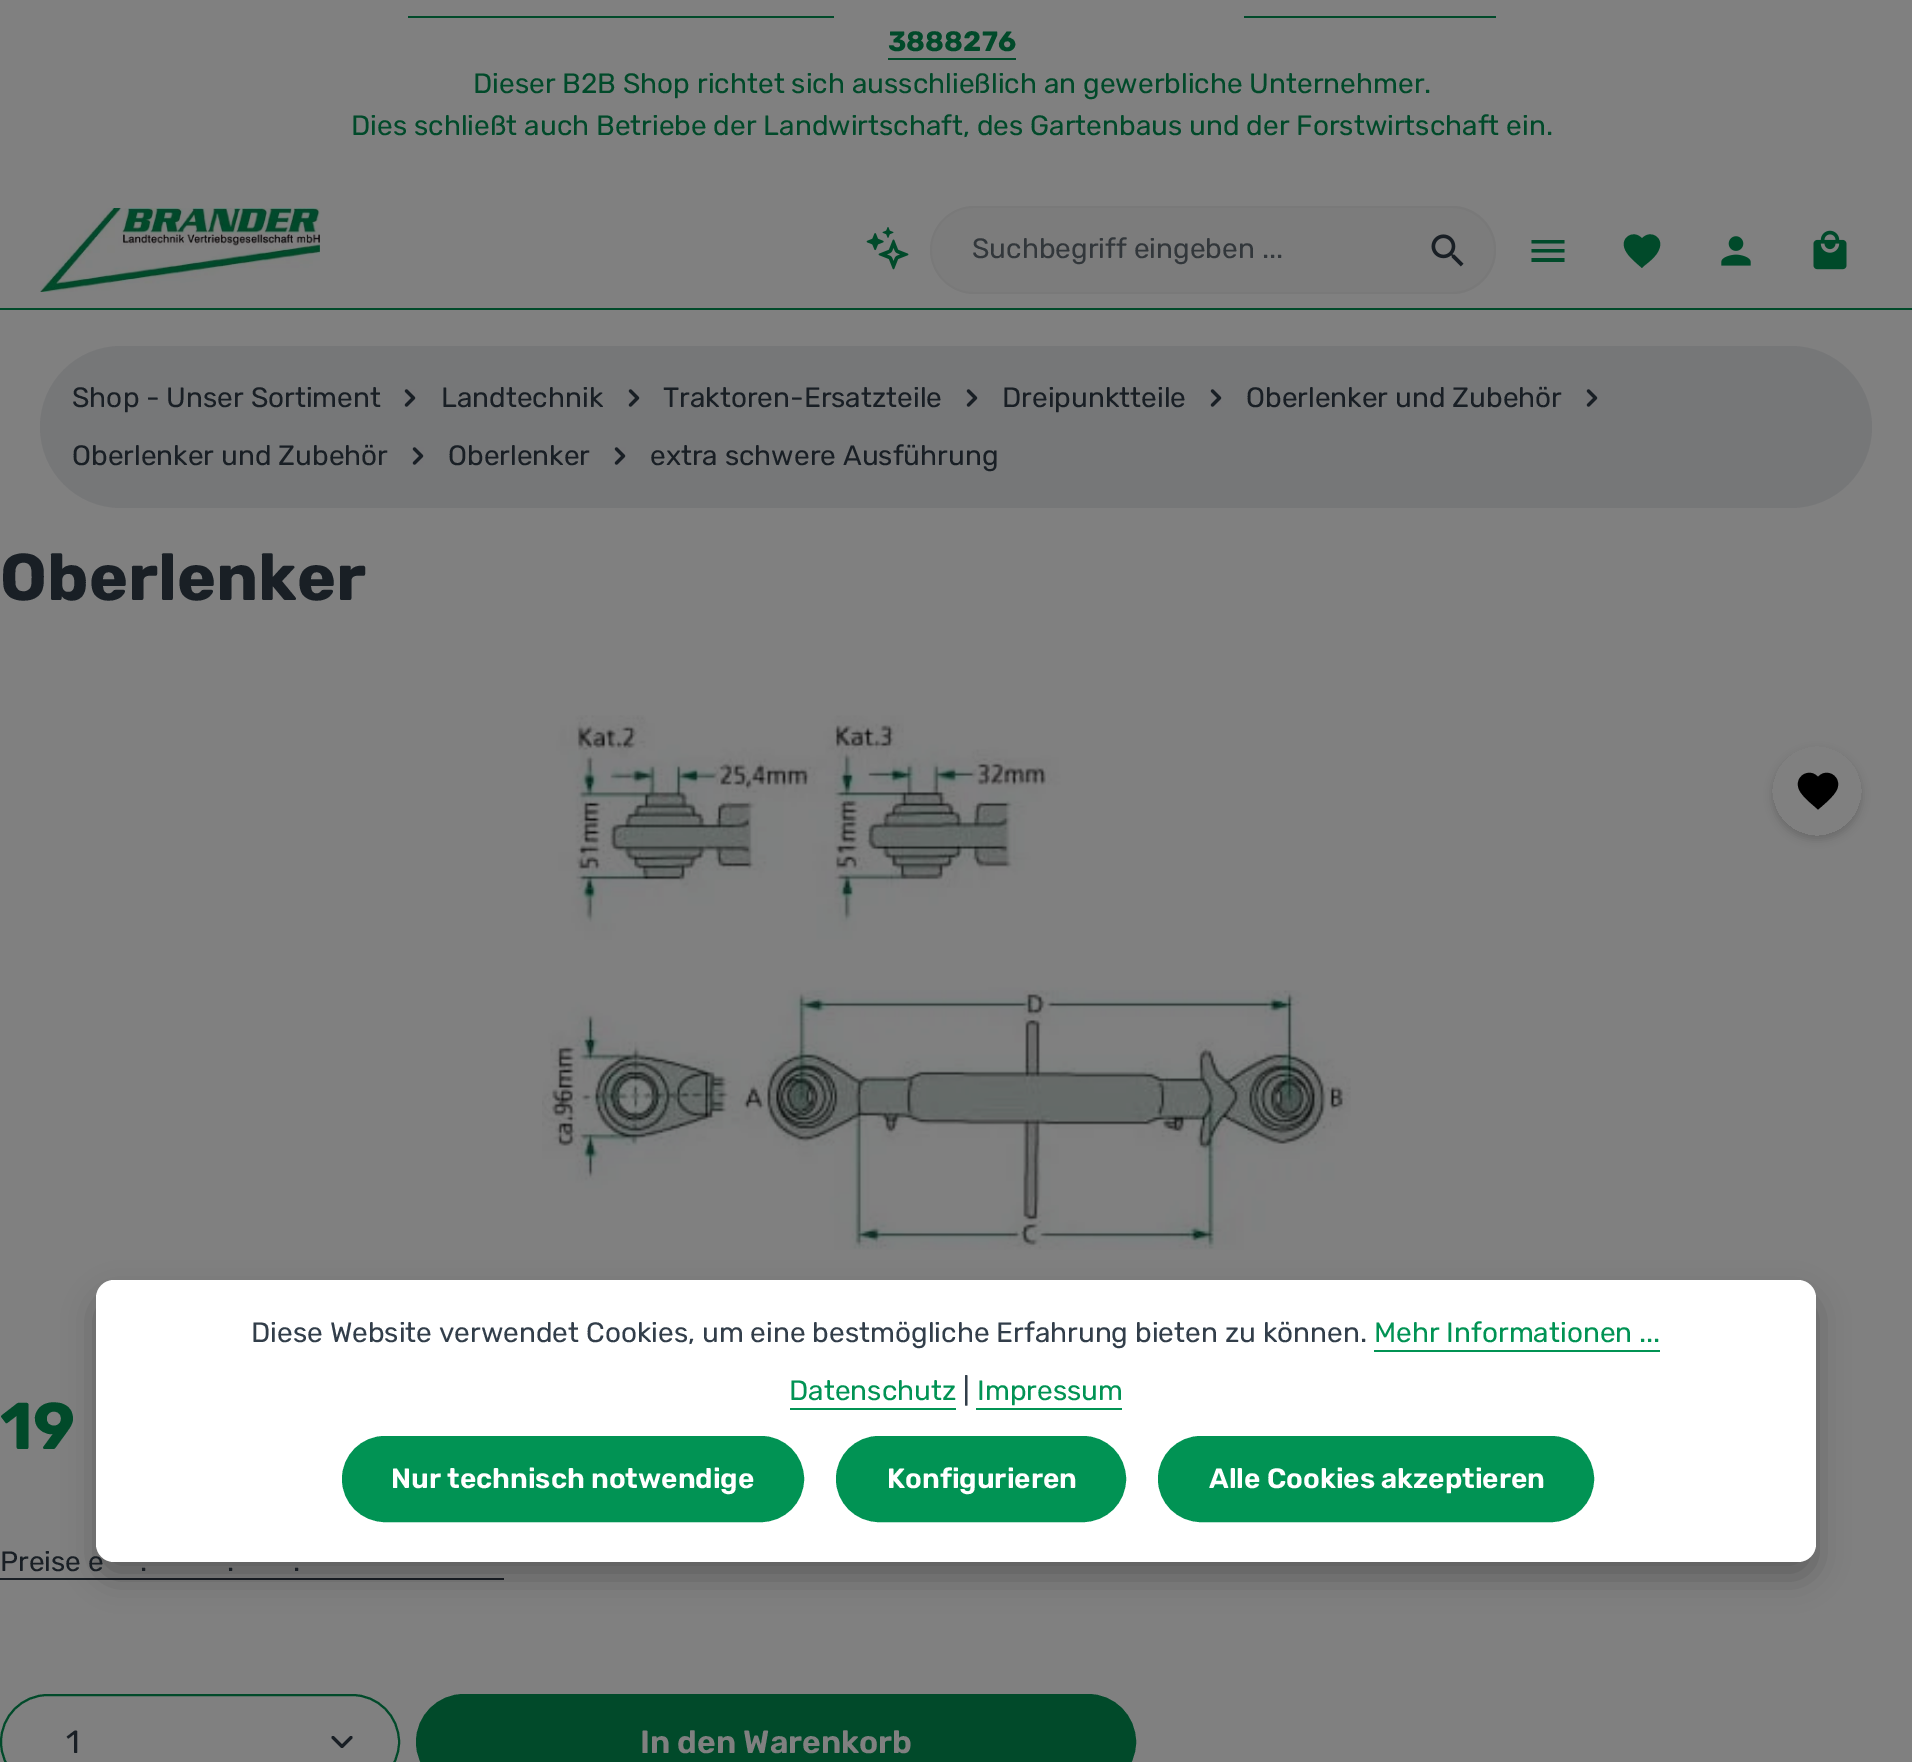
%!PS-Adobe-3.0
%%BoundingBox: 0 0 1912 1762
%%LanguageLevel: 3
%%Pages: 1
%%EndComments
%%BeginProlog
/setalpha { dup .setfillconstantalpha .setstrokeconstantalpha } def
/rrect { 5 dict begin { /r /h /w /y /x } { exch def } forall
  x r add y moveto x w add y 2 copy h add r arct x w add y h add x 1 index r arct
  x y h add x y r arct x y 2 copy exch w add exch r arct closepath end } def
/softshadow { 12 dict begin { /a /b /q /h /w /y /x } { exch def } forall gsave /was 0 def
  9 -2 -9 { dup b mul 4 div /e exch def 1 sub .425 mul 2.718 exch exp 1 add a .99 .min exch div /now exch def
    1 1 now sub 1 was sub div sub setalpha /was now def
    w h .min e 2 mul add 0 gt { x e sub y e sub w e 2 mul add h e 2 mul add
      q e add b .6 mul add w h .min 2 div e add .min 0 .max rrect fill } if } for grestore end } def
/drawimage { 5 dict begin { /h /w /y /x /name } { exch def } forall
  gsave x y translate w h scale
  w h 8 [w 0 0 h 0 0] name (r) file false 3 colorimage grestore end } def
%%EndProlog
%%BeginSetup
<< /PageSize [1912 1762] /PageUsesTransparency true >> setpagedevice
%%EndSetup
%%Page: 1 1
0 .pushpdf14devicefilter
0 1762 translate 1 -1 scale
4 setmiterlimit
0.502 setgray
0 0 1912 1762 rectfill
0.004 0.29 0.165 setrgbcolor
408 16 426 2 rectfill
1244 16 252 2 rectfill
888 58 128 2 rectfill
(images/1.raw) 40 208 280 84 drawimage
(images/2.raw) 866 227 43 43 drawimage
0.486 setgray
newpath 974 208 moveto 1404 208 lineto 1404 292 lineto 974 292 lineto 951 292 932 273 932 250 curveto 932 227 951 208 974 208 curveto closepath fill
0.475 setgray
newpath 974 206 moveto 1404 206 lineto 1404 294 lineto 974 294 lineto 950 294 930 274 930 250 curveto 930 226 950 206 974 206 curveto closepath 974 208 moveto 1404 208 lineto 1404 292 lineto 974 292 lineto 951 292 932 273 932 250 curveto 932 227 951 208 974 208 curveto closepath eofill
0.486 setgray
newpath 1402 206 moveto 1452 206 lineto 1476.5 206 1496 225.5 1496 250 curveto 1496 274.5 1476.5 294 1452 294 curveto 1402 294 lineto closepath fill
0.475 setgray
newpath 1402 206 moveto 1452 206 lineto 1476 206 1496 226 1496 250 curveto 1496 274 1476 294 1452 294 curveto 1402 294 lineto closepath 1402 208 moveto 1452 208 lineto 1475 208 1494 227 1494 250 curveto 1494 273 1475 292 1452 292 curveto 1402 292 lineto closepath eofill
(images/3.raw) 1431 234 33 33 drawimage
0.004 0.29 0.165 setrgbcolor
newpath 1531.5 240 moveto 1564.5 240 lineto 1564.5 243.5 lineto 1531.5 243.5 lineto closepath 1531.5 252.5 moveto 1531.5 249 lineto 1564.5 249 lineto 1564.5 252.5 lineto closepath 1531.5 262 moveto 1531.5 258 lineto 1564.5 258 lineto 1564.5 262 lineto closepath eofill
newpath 1642 268 moveto 1636.5 263 1628 256.5 1625 249.5 curveto 1619.5 237.5 1634 229 1642 238.5 curveto 1650 229 1664.5 237.5 1659 249.5 curveto 1656.5 256 1650 261 1644.5 265.5 curveto closepath eofill
(images/4.raw) 1721 236 30 30 drawimage
(images/5.raw) 1813 230 34 40 drawimage
0 308 1912 2 rectfill
0.463 0.467 0.471 setrgbcolor
40 346 1832 162 81 rrect fill
(images/6.raw) 404 389 12 18 drawimage
(images/6.raw) 628 389 12 18 drawimage
(images/6.raw) 966 389 12 18 drawimage
(images/6.raw) 1210 389 12 18 drawimage
(images/6.raw) 1586 389 12 18 drawimage
(images/6.raw) 412 447 12 18 drawimage
(images/6.raw) 614 447 12 18 drawimage
(images/7.raw) 542 715 809 535 drawimage
gsave
newpath 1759 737 moveto 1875 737 lineto 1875 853 lineto 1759 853 lineto closepath 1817 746 moveto 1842 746 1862 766 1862 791 curveto 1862 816 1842 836 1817 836 curveto 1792 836 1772 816 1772 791 curveto 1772 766 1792 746 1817 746 curveto closepath eoclip newpath
0 setgray
1772 750 90 90 45 4 0.15 softshadow
grestore
0 setgray
newpath 1818 809.5 moveto 1812 804 1802.5 797 1799 789.5 curveto 1793.5 776.5 1809.5 767 1818 777 curveto 1826.5 767 1842.5 776.5 1837 789.5 curveto 1833.5 796.5 1826.5 802 1821 807 curveto closepath eofill
0.098 0.122 0.145 setrgbcolor
0 1578 504 2 rectfill
3 setlinewidth
1 setlinecap
1 setlinejoin
newpath 333 1737.5 moveto 342 1746.5 lineto 351 1737.5 lineto stroke
0.004 0.29 0.165 setrgbcolor
2 setlinewidth
0 setlinecap
0 setlinejoin
1 1695 398 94 47 rrect stroke
417 1695 718 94 47 rrect gsave fill grestore
stroke
0 setgray
96 1296 1720 282 18 16 0.25 softshadow
/Rubik-Bold [28 0 0 -28 0 0] selectfont
0.004 0.29 0.165 setrgbcolor
888 51 moveto (3888276) show
/Rubik-Regular [28 0 0 -28 0 0] selectfont
473 93 moveto (Dieser B2B Shop richtet sich ausschließlich an gewerbliche Unternehmer.) show
351 135 moveto (Dies schließt auch Betriebe der Landwirtschaft, des Gartenbaus und der Forstwirtschaft ein.) show
0.196 0.216 0.231 setrgbcolor
972 258 moveto (Suchbegriff eingeben ...) show
0.098 0.122 0.145 setrgbcolor
72 407 moveto (Shop - Unser Sortiment) show
441 407 moveto (Landtechnik) show
663 407 moveto (Traktoren-Ersatzteile) show
1002 407 moveto (Dreipunktteile) show
1246 407 moveto (Oberlenker und Zubehör) show
72 465 moveto (Oberlenker und Zubehör) show
448 465 moveto (Oberlenker) show
650 465 moveto (extra schwere Ausführung) show
/Rubik-Bold [66 0 0 -66 0 0] selectfont
0 600 moveto (Oberlenker) show
0.004 0.29 0.165 setrgbcolor
0 1449 moveto (19) show
/Rubik-Regular [28 0 0 -28 0 0] selectfont
0.098 0.122 0.145 setrgbcolor
0 1571 moveto (Preise e) show
140 1571 moveto (.) show
227 1571 moveto (.) show
293 1571 moveto (.) show
/Rubik-Regular [32 0 0 -32 0 0] selectfont
66 1753 moveto (1) show
/Rubik-SemiBold [32 0 0 -32 0 0] selectfont
0.502 setgray
640 1753 moveto (In den Warenkorb) show
1 setgray
96 1280 1720 282 18 rrect fill
/Rubik-Regular [28 0 0 -28 0 0] selectfont
0.196 0.243 0.29 setrgbcolor
251 1342 moveto (Diese Website verwendet Cookies, um eine bestmögliche Erfahrung bieten zu können.) show
0.004 0.576 0.329 setrgbcolor
1374 1342 moveto (Mehr Informationen ...) show
1374 1350 286 2 rectfill
789 1400 moveto (Datenschutz) show
790 1408 166 2 rectfill
0.196 0.243 0.29 setrgbcolor
963 1400 moveto (|) show
0.004 0.576 0.329 setrgbcolor
977 1400 moveto (Impressum) show
976 1408 146 2 rectfill
343 1437 460 84 42 rrect gsave fill grestore
stroke
/Rubik-SemiBold [28 0 0 -28 0 0] selectfont
1 setgray
391 1488 moveto (Nur technisch notwendige) show
0.004 0.576 0.329 setrgbcolor
837 1437 288 84 42 rrect gsave fill grestore
stroke
1 setgray
887 1488 moveto (Konfigurieren) show
0.004 0.576 0.329 setrgbcolor
1159 1437 434 84 42 rrect gsave fill grestore
stroke
1 setgray
1209 1488 moveto (Alle Cookies akzeptieren) show
.poppdf14devicefilter showpage
%%EOF
